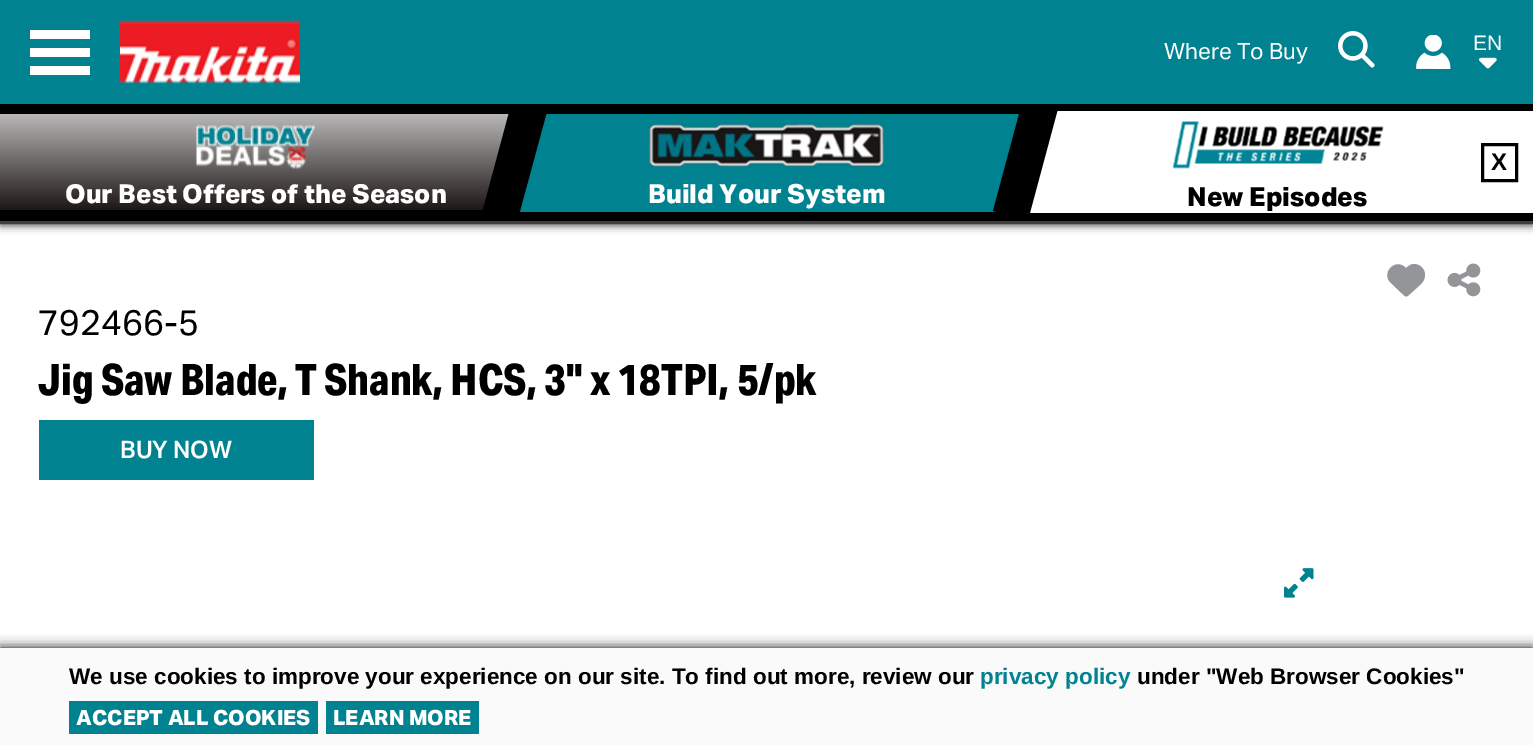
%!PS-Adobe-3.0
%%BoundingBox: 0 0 1533 745
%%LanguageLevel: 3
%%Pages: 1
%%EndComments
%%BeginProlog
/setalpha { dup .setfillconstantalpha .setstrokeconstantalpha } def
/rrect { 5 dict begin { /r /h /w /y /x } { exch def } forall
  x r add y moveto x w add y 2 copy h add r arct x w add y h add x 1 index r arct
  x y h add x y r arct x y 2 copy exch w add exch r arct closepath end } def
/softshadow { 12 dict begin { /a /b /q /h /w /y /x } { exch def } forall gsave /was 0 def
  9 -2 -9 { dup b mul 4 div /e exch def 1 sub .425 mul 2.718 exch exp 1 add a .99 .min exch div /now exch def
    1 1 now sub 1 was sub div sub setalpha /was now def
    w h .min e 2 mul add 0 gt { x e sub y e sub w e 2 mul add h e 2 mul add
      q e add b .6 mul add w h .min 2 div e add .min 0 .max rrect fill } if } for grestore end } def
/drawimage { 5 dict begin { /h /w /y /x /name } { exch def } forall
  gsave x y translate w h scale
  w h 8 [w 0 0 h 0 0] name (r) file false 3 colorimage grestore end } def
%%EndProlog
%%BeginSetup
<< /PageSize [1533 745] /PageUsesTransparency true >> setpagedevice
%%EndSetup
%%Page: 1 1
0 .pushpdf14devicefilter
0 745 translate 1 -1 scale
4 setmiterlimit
1 setgray
0 0 1533 745 rectfill
0 setgray
0 0 1533 224 0 4.5 1 softshadow
0 0.51 0.565 setrgbcolor
0 0 1533 104 rectfill
1 setgray
30 30 60 9 rectfill
30 48 60 9 rectfill
30 66 60 9 rectfill
(images/1.raw) 120 20 180 64 drawimage
(images/2.raw) 1338 31 37 37 drawimage
(images/3.raw) 1416 35 35 34 drawimage
(images/4.raw) 1479 57 18 12 drawimage
0 setgray
0 104 1533 117 rectfill
0.251 setgray
0 221 1533 3 rectfill
1 setgray
1029 111 504 102 rectfill
0 setgray
3 setlinewidth
1482.5 144.5 34 36 rectstroke
gsave newpath 0 114 moveto 509 114 lineto 509 210 lineto 0 210 lineto closepath clip newpath
<< /ShadingType 2 /ColorSpace /DeviceRGB /Coords [256 77 256 210] /Extend [true true] /Function << /FunctionType 2 /Domain [0 1] /C0 [0.961 0.961 0.961] /C1 [0.114 0.09 0.086] /N 1 >> >> shfill grestore
(images/5.raw) 196 125 119 45 drawimage
0 0.51 0.565 setrgbcolor
519 114 501 98 rectfill
gsave
0 104 1533 117 rectclip
0 setgray
newpath 514 94 moveto 549 104 lineto 517 222 lineto 482 213 lineto closepath fill
grestore
(images/6.raw) 649 124 235 43 drawimage
gsave
0 104 1533 117 rectclip
0 setgray
newpath 1025 92 moveto 1060 101 lineto 1028 220 lineto 993 211 lineto closepath fill
grestore
(images/7.raw) 1172 121 212 48 drawimage
0.576 0.584 0.596 setrgbcolor
newpath 1391 283 moveto 1402 293.5 lineto 1406 297.5 1406.5 297.5 1410.5 293.5 curveto 1415 289.5 lineto 1418 286.5 1422.5 283.5 1424 279.5 curveto 1428 270.5 1419 261 1410 265 curveto 1408.5 266 1407.5 267 1406 268 curveto 1395 257 1380.5 273.5 1391 283 curveto closepath fill
(images/8.raw) 1447 263 34 34 drawimage
0 0.51 0.565 setrgbcolor
39 420 275 60 rectfill
(images/9.raw) 1284 568 30 30 drawimage
0 setgray
0 648 1533 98 0 6 1 softshadow
0.98 setgray
0 648 1533 97 rectfill
0 0.51 0.565 setrgbcolor
69 701 249 33 rectfill
326 701 153 33 rectfill
/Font-Regular [22.5 0 0 -22.5 0 0] selectfont
1 setgray
1164 59 moveto (Where To Buy) show
/LiberationSans-Regular [21 0 0 -21 0 0] selectfont
1473 50 moveto (EN) show
/LiberationSans-Bold [24 0 0 -24 0 0] selectfont
0 setgray
1491 170 moveto (X) show
/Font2-ExtraBold [26.1 0 0 -26.1 0 0] selectfont
1 setgray
65 203 moveto (Our Best Offers of the Season) show
/Font2-ExtraBold [26.4 0 0 -26.4 0 0] selectfont
648 203 moveto (Build Your System) show
0 setgray
1187 206 moveto (New Episodes) show
/Font-Regular [35.5 0 0 -35.5 0 0] selectfont
38 335 moveto (792466-5) show
/Font-ExtraBold [43.5 0 0 -43.5 0 0] selectfont
38 395 moveto (Jig Saw Blade, T Shank, HCS, 3" x 18TPI, 5/pk) show
/Font-SemiBold [24 0 0 -24 0 0] selectfont
1 setgray
120 458 moveto (BUY NOW) show
/LiberationSans-Bold [22.5 0 0 -22.5 0 0] selectfont
0 setgray
69 684 moveto (We use cookies to improve your experience on our site. To find out more, review our) show
0 0.51 0.565 setrgbcolor
980 684 moveto (privacy policy) show
0 setgray
1137 684 moveto (under "Web Browser Cookies") show
/Font2-ExtraBold [21 0 0 -21 0 0] selectfont
1 setgray
76 725 moveto (ACCEPT ALL COOKIES) show
333 725 moveto (LEARN MORE) show
.poppdf14devicefilter showpage
%%EOF
